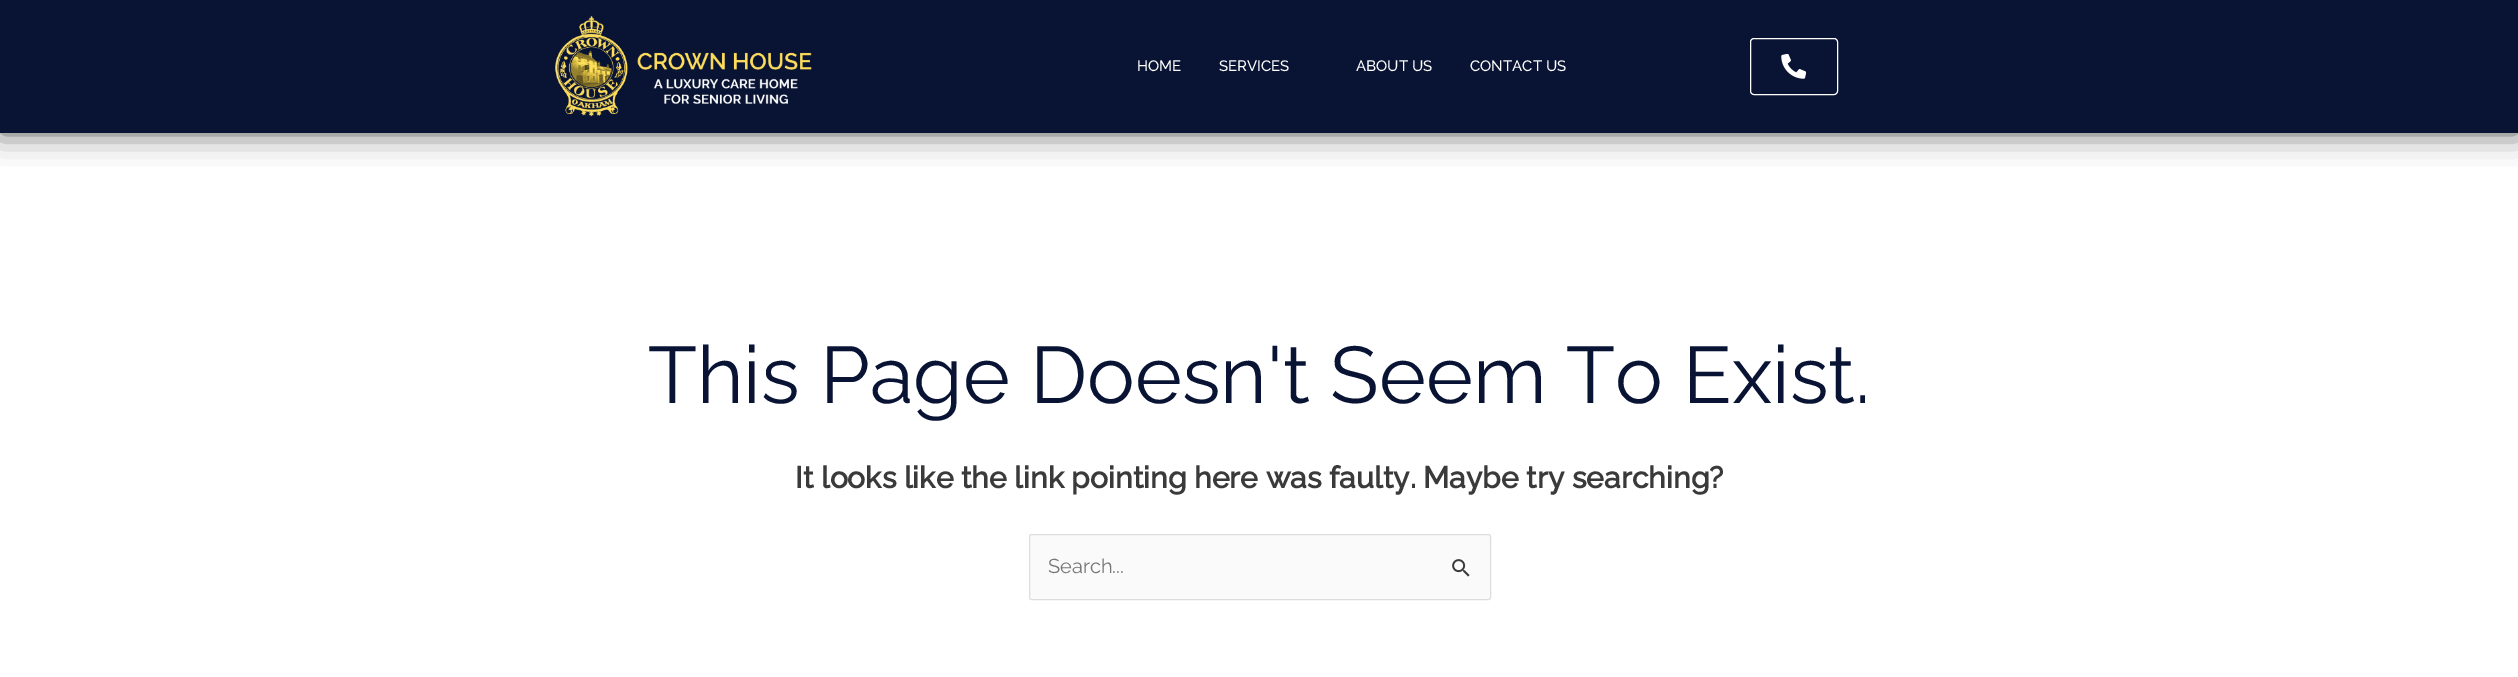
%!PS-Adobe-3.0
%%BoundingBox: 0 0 2518 677
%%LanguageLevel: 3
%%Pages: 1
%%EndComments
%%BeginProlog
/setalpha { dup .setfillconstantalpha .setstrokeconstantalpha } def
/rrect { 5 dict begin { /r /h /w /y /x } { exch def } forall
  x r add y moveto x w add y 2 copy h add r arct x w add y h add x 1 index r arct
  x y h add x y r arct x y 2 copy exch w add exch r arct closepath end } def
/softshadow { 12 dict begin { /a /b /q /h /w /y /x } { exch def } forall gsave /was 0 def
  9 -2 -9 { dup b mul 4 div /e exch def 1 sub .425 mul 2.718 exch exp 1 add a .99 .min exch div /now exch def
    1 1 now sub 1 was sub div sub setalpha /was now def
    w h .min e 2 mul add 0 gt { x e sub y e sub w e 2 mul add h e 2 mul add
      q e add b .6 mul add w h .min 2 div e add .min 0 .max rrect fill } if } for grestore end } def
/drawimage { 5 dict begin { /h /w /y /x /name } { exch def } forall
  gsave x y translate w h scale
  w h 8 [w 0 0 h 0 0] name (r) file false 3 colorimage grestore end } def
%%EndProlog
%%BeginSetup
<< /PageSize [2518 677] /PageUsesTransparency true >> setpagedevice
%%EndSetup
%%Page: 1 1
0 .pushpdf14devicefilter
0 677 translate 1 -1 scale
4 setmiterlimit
1 setgray
0 0 2518 677 rectfill
0 setgray
0 0 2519 133 0 15 0.68 softshadow
0.035 0.078 0.204 setrgbcolor
0 0 2518 133 rectfill
(images/1.raw) 555 15 257 102 drawimage
1 setgray
1750.5 38.5 87 56 3.5 rrect stroke
(images/2.raw) 1781 54 25 25 drawimage
0.98 setgray
1029.5 534.5 461 65 2 rrect gsave fill grestore
0.867 setgray
stroke
(images/3.raw) 1452 559 18 18 drawimage
/Raleway-Medium [15 0 0 -15 0 0] selectfont
1 setgray
1137 71 moveto (HOME) show
1219 71 moveto (SERVICES) show
1356 71 moveto (ABOUT US) show
1470 71 moveto (CONTACT US) show
/Raleway-Regular [80 0 0 -80 0 0] selectfont
0.035 0.078 0.204 setrgbcolor
648 403 moveto (This Page Doesn't Seem To Exist.) show
/Raleway-Bold [30 0 0 -30 0 0] selectfont
0.227 setgray
795 488 moveto (It looks like the link pointing here was faulty. Maybe try searching?) show
/Raleway-Regular [20 0 0 -20 0 0] selectfont
0.459 setgray
1048 573 moveto (Search...) show
.poppdf14devicefilter showpage
%%EOF
